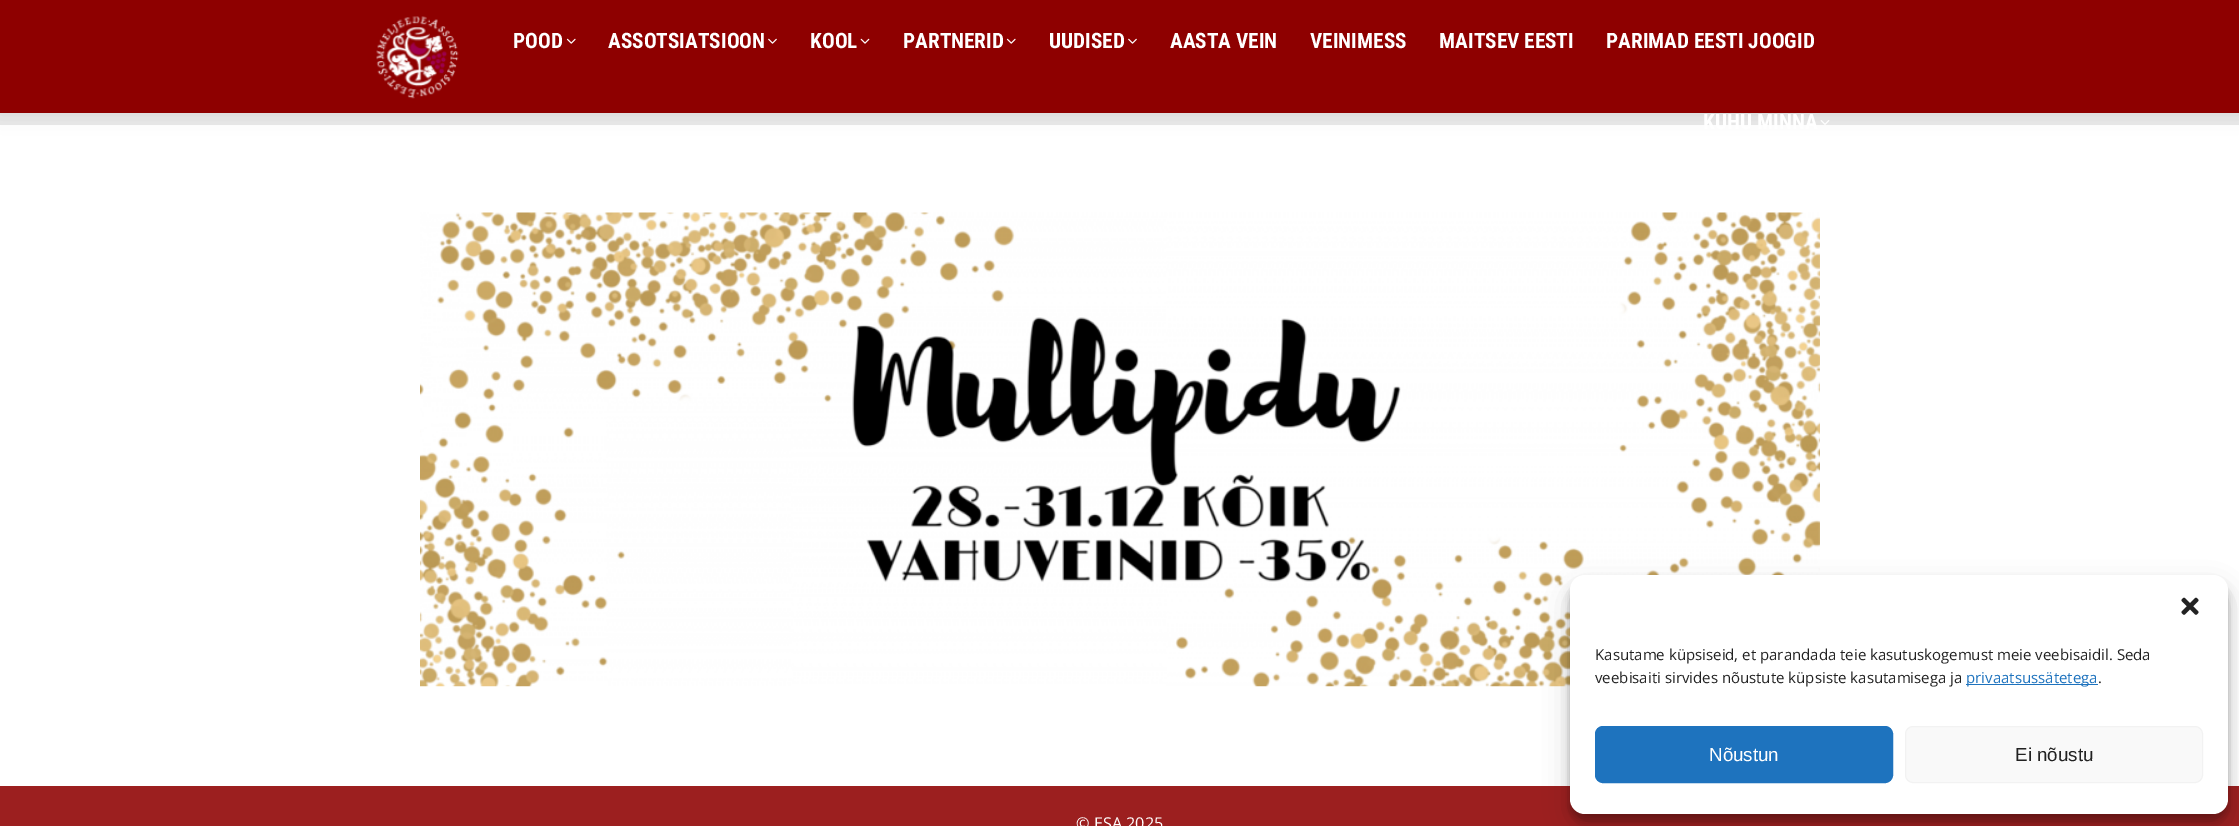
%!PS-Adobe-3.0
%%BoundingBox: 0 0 2239 826
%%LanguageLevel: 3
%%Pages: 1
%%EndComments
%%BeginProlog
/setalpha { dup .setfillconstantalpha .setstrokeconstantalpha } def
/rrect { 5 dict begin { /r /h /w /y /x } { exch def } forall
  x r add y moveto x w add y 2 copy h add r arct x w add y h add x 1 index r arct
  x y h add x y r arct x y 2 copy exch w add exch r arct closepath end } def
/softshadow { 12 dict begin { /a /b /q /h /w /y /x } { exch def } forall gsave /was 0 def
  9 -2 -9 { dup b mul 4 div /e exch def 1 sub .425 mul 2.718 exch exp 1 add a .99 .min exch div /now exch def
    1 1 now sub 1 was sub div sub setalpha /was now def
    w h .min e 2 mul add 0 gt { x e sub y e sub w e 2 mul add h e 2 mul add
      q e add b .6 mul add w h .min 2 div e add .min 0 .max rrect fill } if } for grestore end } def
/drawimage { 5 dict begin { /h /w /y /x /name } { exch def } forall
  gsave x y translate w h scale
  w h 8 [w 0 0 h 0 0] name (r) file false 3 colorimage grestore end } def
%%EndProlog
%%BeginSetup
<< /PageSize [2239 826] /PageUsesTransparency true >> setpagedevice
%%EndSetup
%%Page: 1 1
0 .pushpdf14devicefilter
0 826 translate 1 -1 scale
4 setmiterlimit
1 setgray
0 0 2239 826 rectfill
0.914 setgray
0 113 2239 12 rectfill
0 setgray
-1 -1 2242 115 0 9.5 0.07 softshadow
0.557 0 0 setrgbcolor
0 0 2239 113 rectfill
(images/1.raw) 376 16 83 83 drawimage
(images/2.raw) 566 38 10 6 drawimage
(images/3.raw) 768 38 9 6 drawimage
(images/4.raw) 860 38 10 6 drawimage
(images/2.raw) 1006 38 10 6 drawimage
(images/3.raw) 1128 38 9 6 drawimage
(images/5.raw) 1820 120 10 5 drawimage
(images/6.raw) 420 212 1400 475 drawimage
0.612 0.122 0.122 setrgbcolor
0 786 2239 40 rectfill
0 setgray
1570 583 658 238 15 4 0.23 softshadow
1570 588 658 238 15 12.5 0.19 softshadow
1 setgray
1570 575 658 239 15 rrect fill
(images/7.raw) 2181 597 18 18 drawimage
0.118 0.451 0.745 setrgbcolor
1966 684 132 1 rectfill
1595.5 726.5 297 56 7.5 rrect gsave fill grestore
stroke
0.976 setgray
1905.5 726.5 297 56 7.5 rrect gsave fill grestore
0.949 setgray
stroke
/RobotoCondensed-Bold [21.25 0 0 -21.25 0 0] selectfont
1 setgray
513 48 moveto (POOD) show
608 48 moveto (ASSOTSIATSIOON) show
810 48 moveto (KOOL) show
903 48 moveto (PARTNERID) show
1049 48 moveto (UUDISED) show
1170 48 moveto (AASTA VEIN) show
1310 48 moveto (VEINIMESS) show
1439 48 moveto (MAITSEV EESTI) show
1606 48 moveto (PARIMAD EESTI JOOGID) show
1703 129 moveto (KUHU MINNA) show
/OpenSans-Regular [16.25 0 0 -16.25 0 0] selectfont
1076 829 moveto (© ESA 2025) show
/OpenSans-Regular [15 0 0 -15 0 0] selectfont
0.133 setgray
1595 660 moveto (Kasutame küpsiseid, et parandada teie kasutuskogemust meie veebisaidil. Seda) show
1595 683 moveto (veebisaiti sirvides nõustute küpsiste kasutamisega ja) show
0.118 0.451 0.745 setrgbcolor
1966 683 moveto (privaatsussätetega) show
0.133 setgray
2098 683 moveto (.) show
/LiberationSans-Regular [18.75 0 0 -18.75 0 0] selectfont
1 setgray
1709 761 moveto (Nõustun) show
0.133 setgray
2015 761 moveto (Ei nõustu) show
.poppdf14devicefilter showpage
%%EOF
